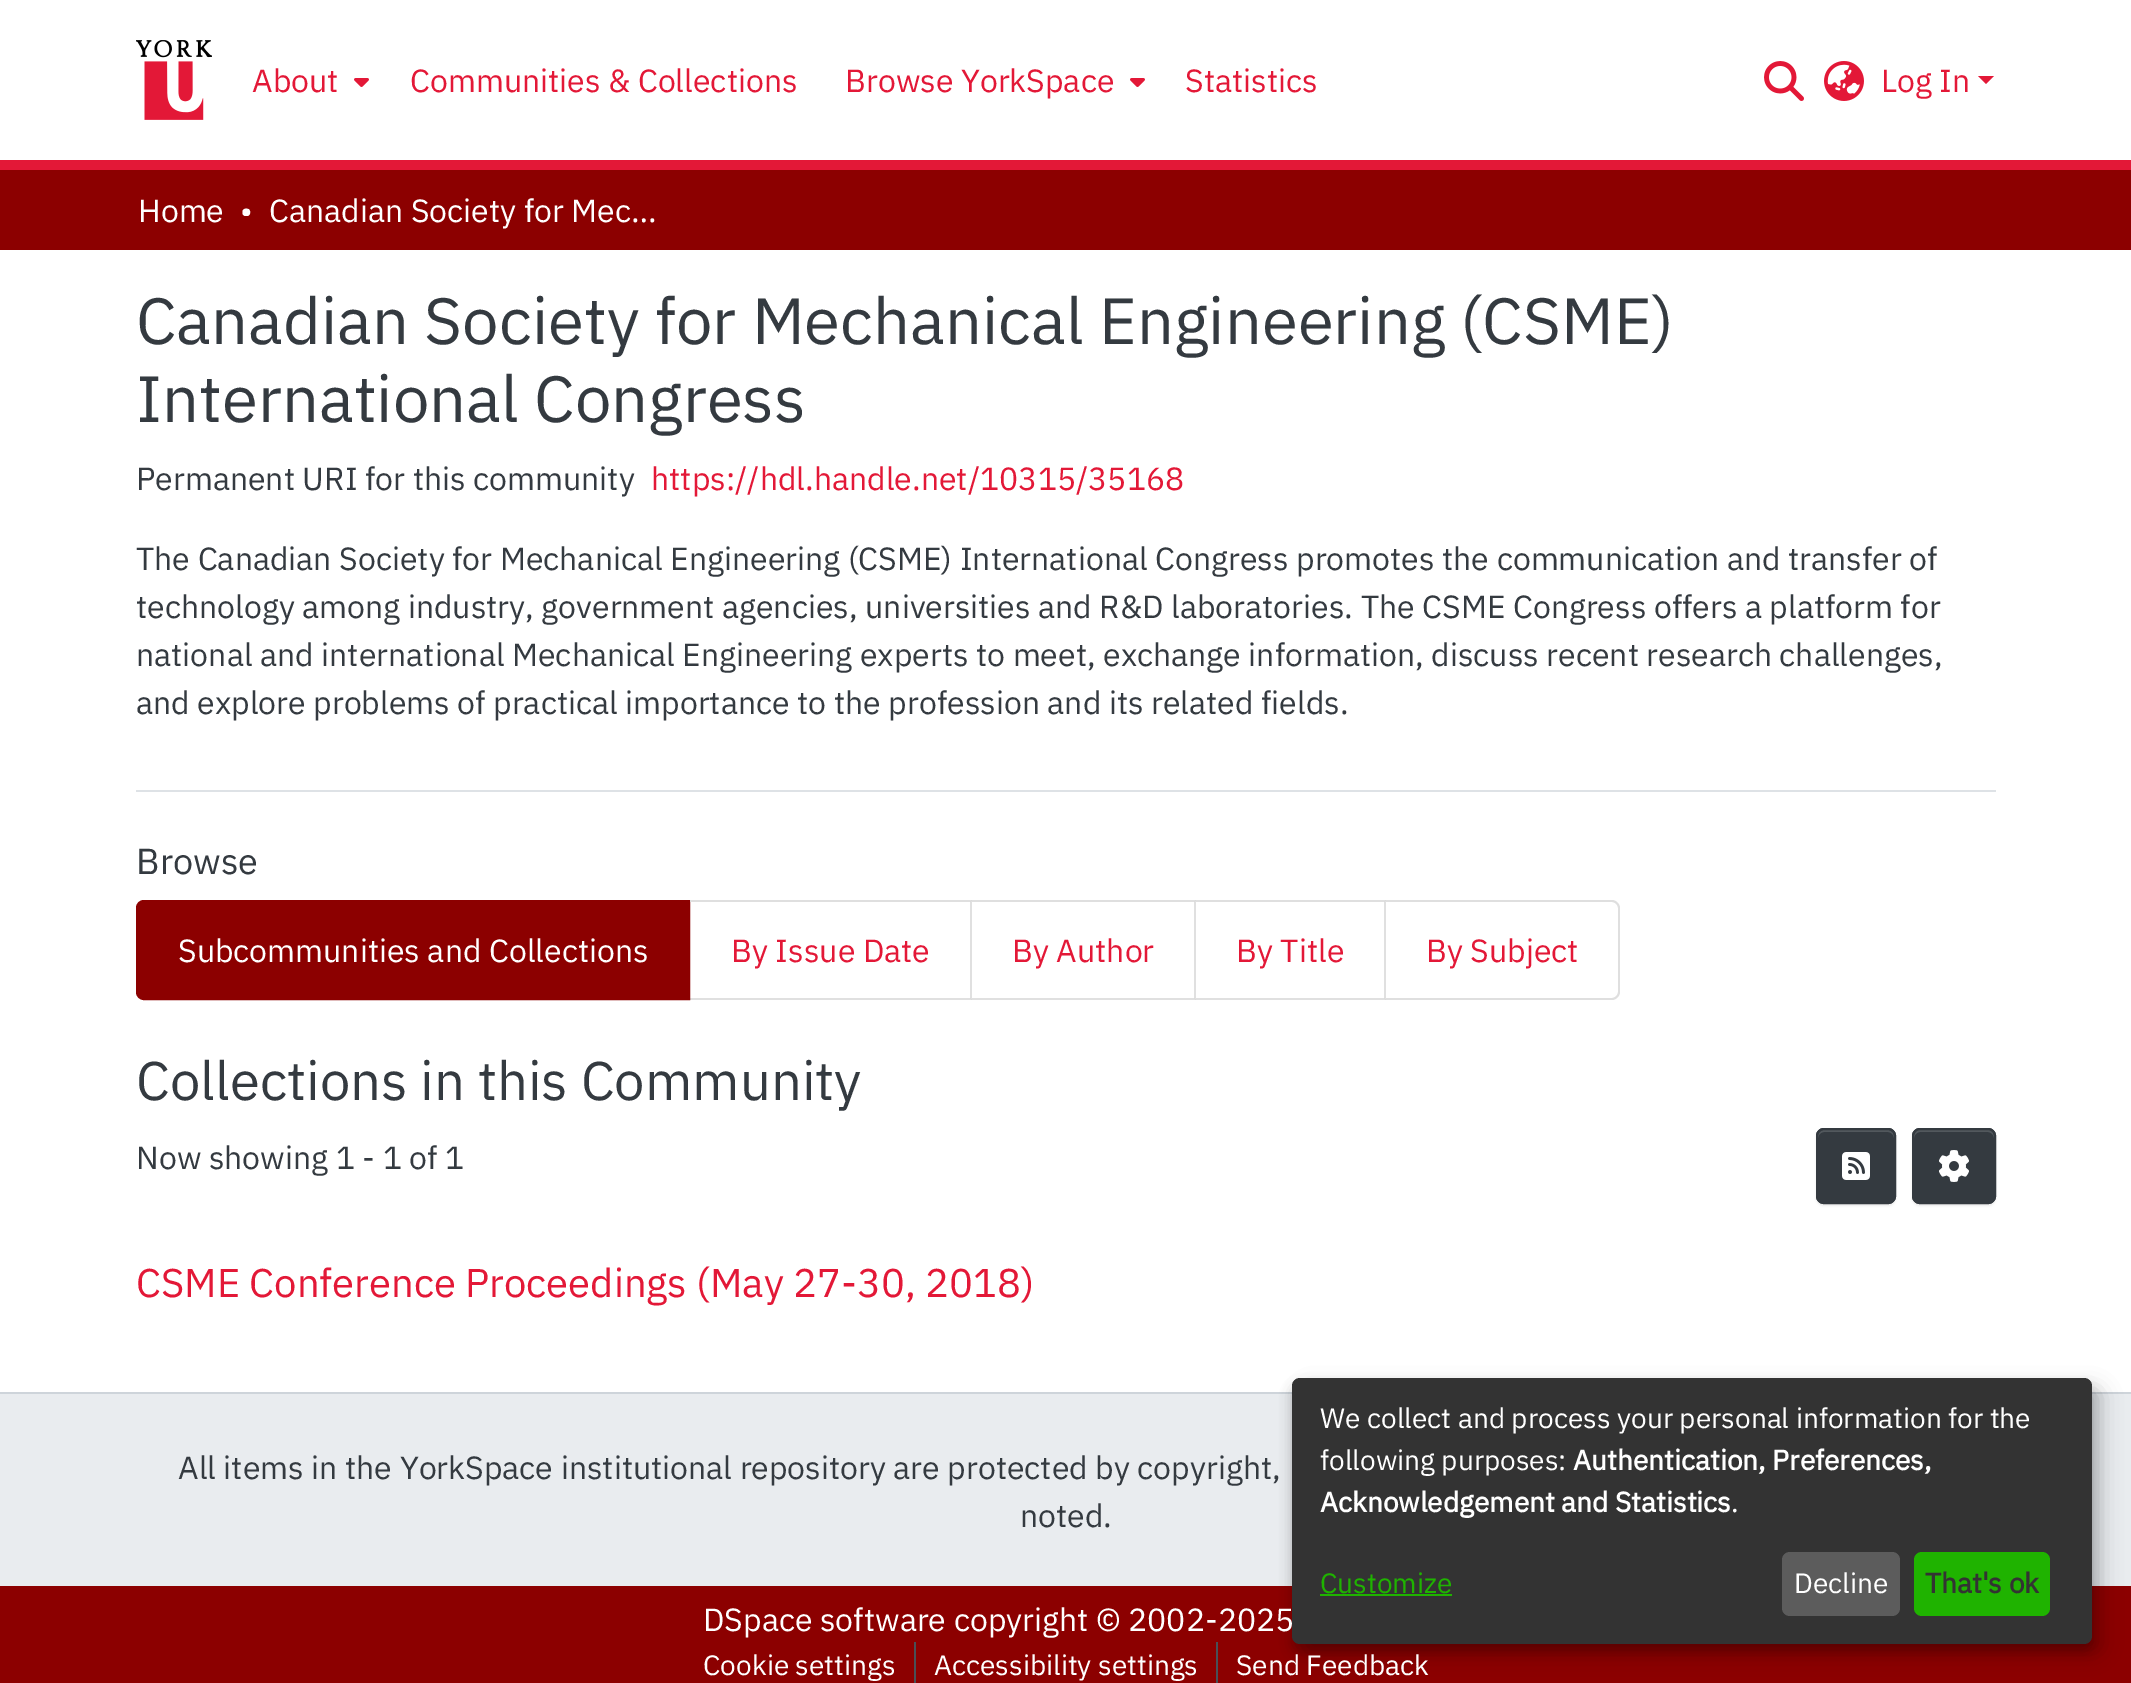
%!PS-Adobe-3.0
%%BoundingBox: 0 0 2131 1683
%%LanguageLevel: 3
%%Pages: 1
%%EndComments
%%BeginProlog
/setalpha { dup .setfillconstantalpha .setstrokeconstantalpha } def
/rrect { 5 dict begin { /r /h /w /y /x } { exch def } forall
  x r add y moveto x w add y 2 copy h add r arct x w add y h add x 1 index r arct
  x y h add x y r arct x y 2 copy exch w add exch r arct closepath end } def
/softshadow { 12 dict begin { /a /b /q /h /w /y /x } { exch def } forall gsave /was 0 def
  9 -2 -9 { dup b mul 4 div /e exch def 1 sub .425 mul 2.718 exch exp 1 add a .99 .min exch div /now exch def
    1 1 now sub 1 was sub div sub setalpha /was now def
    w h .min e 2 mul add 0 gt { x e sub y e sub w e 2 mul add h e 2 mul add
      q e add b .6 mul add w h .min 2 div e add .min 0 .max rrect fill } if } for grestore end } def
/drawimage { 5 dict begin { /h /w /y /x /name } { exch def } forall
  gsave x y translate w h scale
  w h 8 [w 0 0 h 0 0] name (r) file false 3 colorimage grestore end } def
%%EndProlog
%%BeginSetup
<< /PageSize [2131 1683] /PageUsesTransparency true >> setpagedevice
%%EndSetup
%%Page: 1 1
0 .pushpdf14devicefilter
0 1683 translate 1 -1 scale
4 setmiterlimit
1 setgray
0 0 2131 1683 rectfill
0.89 0.094 0.216 setrgbcolor
0 160 2131 10 rectfill
(images/1.raw) 136 40 76 80 drawimage
(images/2.raw) 354 78 15 9 drawimage
(images/2.raw) 1130 78 15 9 drawimage
(images/3.raw) 1764 61 40 40 drawimage
(images/4.raw) 1824 61 40 40 drawimage
newpath 1978 76 moveto 1994 76 lineto 1986 84 lineto closepath fill
0.549 0 0 setrgbcolor
0 170 2131 80 rectfill
0.871 0.886 0.902 setrgbcolor
136 790 1860 2 rectfill
0.549 0 0 setrgbcolor
newpath 144 901 moveto 689 901 lineto 689 999 lineto 144 999 lineto 140 999 137 996 137 992 curveto 137 908 lineto 137 904 140 901 144 901 curveto closepath gsave fill grestore
2 setlinewidth
stroke
0.875 setgray
newpath 690 900 moveto 972 900 lineto 970 902 lineto 690 902 lineto closepath fill
0.12 setalpha
0 setgray
newpath 972 900 moveto 972 1000 lineto 970 998 lineto 970 902 lineto closepath fill
newpath 972 1000 moveto 690 1000 lineto 690 998 lineto 970 998 lineto closepath fill
1 setalpha
0.875 setgray
newpath 972 900 moveto 1196 900 lineto 1194 902 lineto 972 902 lineto closepath fill
0.12 setalpha
0 setgray
newpath 1196 900 moveto 1196 1000 lineto 1194 998 lineto 1194 902 lineto closepath fill
newpath 1196 1000 moveto 972 1000 lineto 972 998 lineto 1194 998 lineto closepath fill
1 setalpha
0.875 setgray
newpath 1196 900 moveto 1386 900 lineto 1384 902 lineto 1196 902 lineto closepath fill
0.12 setalpha
0 setgray
newpath 1386 900 moveto 1386 1000 lineto 1384 998 lineto 1384 902 lineto closepath fill
newpath 1386 1000 moveto 1196 1000 lineto 1196 998 lineto 1384 998 lineto closepath fill
1 setalpha
0.875 setgray
newpath 1386 900 moveto 1612 900 lineto 1616 900 1620 904 1620 908 curveto 1620 992 lineto 1620 996 1616 1000 1612 1000 curveto 1386 1000 lineto closepath 1386 902 moveto 1612 902 lineto 1615 902 1618 905 1618 908 curveto 1618 992 lineto 1618 995 1615 998 1612 998 curveto 1386 998 lineto closepath eofill
0 setgray
1816 1130 80 76 8 1 0.07 softshadow
0.204 0.227 0.251 setrgbcolor
1816 1128 80 76 8 rrect fill
0.322 0.345 0.365 setrgbcolor
newpath 1824 1132 moveto 1888 1132 lineto 1891 1132 1894 1135 1894 1138 curveto 1894 1128 1886 1130 1877 1130 curveto 1835 1130 lineto 1826 1130 1818 1128 1818 1138 curveto 1818 1135 1821 1132 1824 1132 curveto closepath fill
0.204 0.227 0.251 setrgbcolor
1817 1129 78 74 7 rrect stroke
(images/5.raw) 1842 1152 28 28 drawimage
0 setgray
1912 1130 84 76 8 1 0.07 softshadow
0.204 0.227 0.251 setrgbcolor
1912 1128 84 76 8 rrect fill
0.322 0.345 0.365 setrgbcolor
newpath 1920 1132 moveto 1988 1132 lineto 1991 1132 1994 1135 1994 1138 curveto 1994 1127 1985 1130 1977 1130 curveto 1931 1130 lineto 1923 1130 1914 1127 1914 1138 curveto 1914 1135 1917 1132 1920 1132 curveto closepath fill
0.204 0.227 0.251 setrgbcolor
1913 1129 82 74 7 rrect stroke
(images/6.raw) 1939 1150 30 32 drawimage
0.549 0 0 setrgbcolor
0 1586 2131 97 rectfill
0.808 0.831 0.855 setrgbcolor
0 1392 2131 2 rectfill
0.914 0.925 0.937 setrgbcolor
0 1394 2131 192 rectfill
0.286 0.314 0.341 setrgbcolor
914 1642 2 41 rectfill
1216 1642 2 41 rectfill
0 setgray
1302 1388 800 266 8 10 0.19 softshadow
1292 1386 800 266 8 6 0.2 softshadow
/IBMPlexSans-Regular [32 0 0 -32 0 0] selectfont
0.89 0.094 0.216 setrgbcolor
252 92 moveto (About) show
410 92 moveto (Communities & Collections) show
845 92 moveto (Browse YorkSpace) show
1185 92 moveto (Statistics) show
1881 92 moveto (Log In) show
1 setgray
138 222 moveto (Home) show
240 222 moveto (•) show
269 222 moveto (Canadian Society for Mec…) show
/IBMPlexSans-Regular [65.2 0 0 -65.2 0 0] selectfont
0.204 0.227 0.251 setrgbcolor
136 344 moveto (Canadian Society for Mechanical Engineering \(CSME\)) show
136 422 moveto (International Congress) show
/IBMPlexSans-Regular [32 0 0 -32 0 0] selectfont
136 490 moveto (Permanent URI for this community) show
0.89 0.094 0.216 setrgbcolor
651 490 moveto (https://hdl.handle.net/10315/35168) show
0.204 0.227 0.251 setrgbcolor
136 570 moveto (The Canadian Society for Mechanical Engineering \(CSME\) International Congress promotes the communication and transfer of) show
136 618 moveto (technology among industry, government agencies, universities and R&D laboratories. The CSME Congress offers a platform for) show
136 666 moveto (national and international Mechanical Engineering experts to meet, exchange information, discuss recent research challenges,) show
136 714 moveto (and explore problems of practical importance to the profession and its related fields.) show
/IBMPlexSans-Regular [36 0 0 -36 0 0] selectfont
136 874 moveto (Browse) show
/IBMPlexSans-Regular [32 0 0 -32 0 0] selectfont
1 setgray
178 962 moveto (Subcommunities and Collections) show
0.89 0.094 0.216 setrgbcolor
731 962 moveto (By Issue Date) show
1012 962 moveto (By Author) show
1236 962 moveto (By Title) show
1426 962 moveto (By Subject) show
/IBMPlexSans-Regular [54.4 0 0 -54.4 0 0] selectfont
0.204 0.227 0.251 setrgbcolor
136 1100 moveto (Collections in this Community) show
/IBMPlexSans-Regular [32 0 0 -32 0 0] selectfont
136 1169 moveto (Now showing 1 - 1 of 1) show
/IBMPlexSans-Regular [40 0 0 -40 0 0] selectfont
0.89 0.094 0.216 setrgbcolor
136 1297 moveto (CSME Conference Proceedings \(May 27-30, 2018\)) show
/IBMPlexSans-Regular [32 0 0 -32 0 0] selectfont
0.204 0.227 0.251 setrgbcolor
178 1479 moveto (All items in the YorkSpace institutional repository are protected by copyright,) show
1020 1527 moveto (noted.) show
1 setgray
703 1631 moveto (DSpace software copyright © 2002-2025) show
/IBMPlexSans-Regular [28 0 0 -28 0 0] selectfont
703 1675 moveto (Cookie settings) show
934 1675 moveto (Accessibility settings) show
1236 1675 moveto (Send Feedback) show
0.2 setgray
1292 1378 800 266 8 rrect fill
1 setgray
1320 1428 moveto (We collect and process your personal information for the) show
1320 1470 moveto (following purposes:) show
/IBMPlexSans-Bold [28 0 0 -28 0 0] selectfont
1573 1470 moveto (Authentication, Preferences,) show
1320 1512 moveto (Acknowledgement and Statistics) show
/IBMPlexSans-Regular [28 0 0 -28 0 0] selectfont
1731 1512 moveto (.) show
0.122 0.702 0 setrgbcolor
1320 1593 moveto (Customize) show
1320 1594 132 2 rectfill
0.361 setgray
1782 1552 118 64 8 rrect fill
1 setgray
1794 1593 moveto (Decline) show
0.122 0.702 0 setrgbcolor
1914 1552 136 64 8 rrect fill
/IBMPlexSans-Bold [28 0 0 -28 0 0] selectfont
0.2 setgray
1925 1593 moveto (That's ok) show
.poppdf14devicefilter showpage
%%EOF
